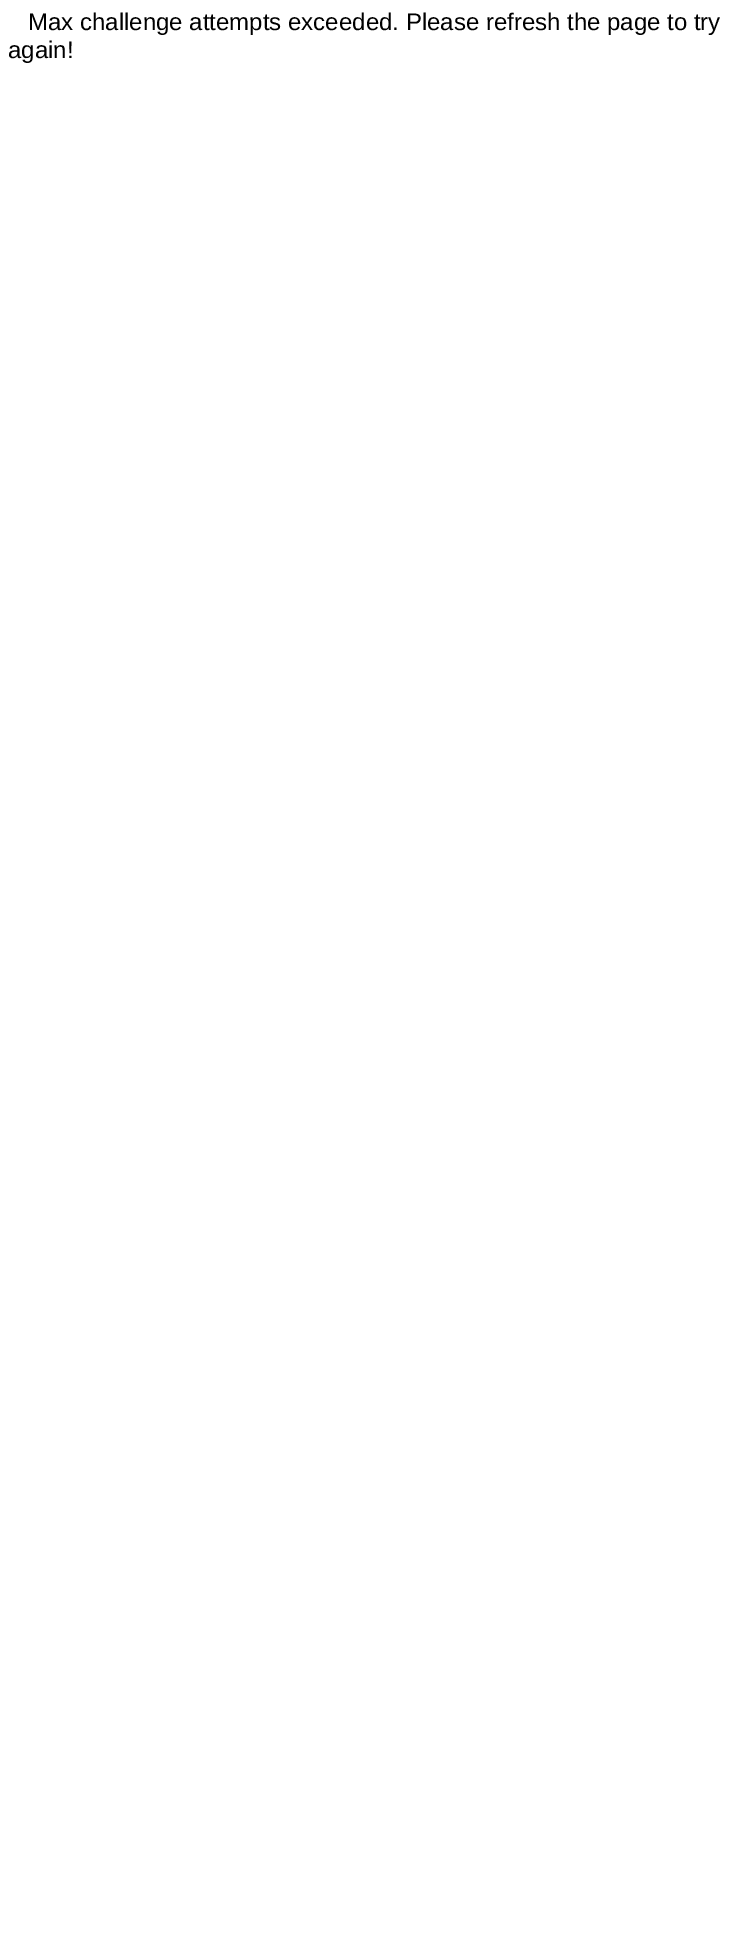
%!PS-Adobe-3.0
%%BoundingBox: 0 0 752 1934
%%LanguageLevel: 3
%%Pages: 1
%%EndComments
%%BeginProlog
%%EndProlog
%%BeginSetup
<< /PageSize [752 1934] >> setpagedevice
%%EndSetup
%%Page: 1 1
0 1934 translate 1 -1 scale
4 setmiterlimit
1 setgray
0 0 752 1934 rectfill
/LiberationSans-Regular [24 0 0 -24 0 0] selectfont
0 setgray
28 30 moveto (Max challenge attempts exceeded. Please refresh the page to try) show
8 58 moveto (again!) show
showpage
%%EOF
